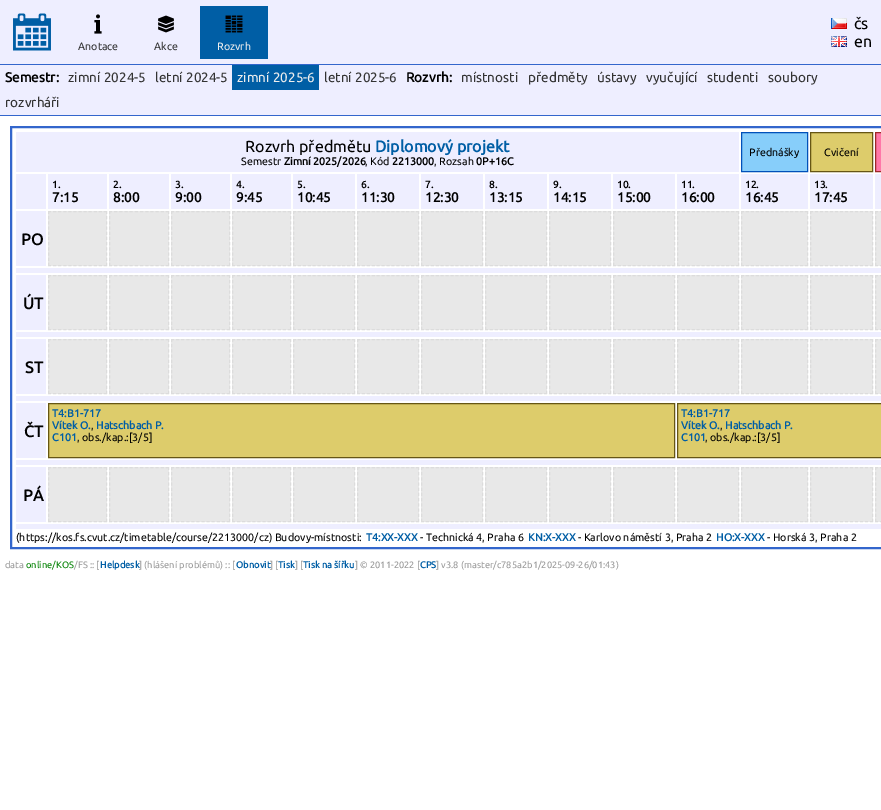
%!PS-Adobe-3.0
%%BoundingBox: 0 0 881 810
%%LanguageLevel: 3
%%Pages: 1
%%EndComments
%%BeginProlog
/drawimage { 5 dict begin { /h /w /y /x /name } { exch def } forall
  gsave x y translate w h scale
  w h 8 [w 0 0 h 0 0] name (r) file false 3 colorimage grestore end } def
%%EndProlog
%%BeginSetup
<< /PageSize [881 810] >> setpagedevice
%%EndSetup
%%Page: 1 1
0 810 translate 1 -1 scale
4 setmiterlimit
1 setgray
0 0 881 810 rectfill
0.933 0.933 1 setrgbcolor
0 0 881 64 rectfill
0.2 0.4 0.8 setrgbcolor
0 64 881 1 rectfill
(images/1.raw) 13 13 38 38 drawimage
(images/2.raw) 94 14 8 20 drawimage
(images/3.raw) 158 15 16 18 drawimage
0 0.369 0.647 setrgbcolor
200 6 68 53 rectfill
(images/4.raw) 225 15 18 18 drawimage
(images/5.raw) 831 18 16 11 drawimage
(images/6.raw) 831 36 16 11 drawimage
0.933 0.933 1 setrgbcolor
0 65 881 50 rectfill
0.2 0.4 0.8 setrgbcolor
0 115 881 1 rectfill
0 0.369 0.647 setrgbcolor
232 65 87 25 rectfill
0.2 0.4 0.8 setrgbcolor
2 setlinewidth
11 127 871 421 rectstroke
0.933 0.933 1 setrgbcolor
16 132 723 40 rectfill
0.529 0.808 0.98 setrgbcolor
newpath 741.5 132.5 moveto 807.5 132.5 lineto 807.5 171.5 lineto 741.5 171.5 lineto closepath gsave fill grestore
0 0.318 0.729 setrgbcolor
1 setlinewidth
stroke
0.867 0.8 0.42 setrgbcolor
newpath 810.5 132.5 moveto 872.5 132.5 lineto 872.5 171.5 lineto 810.5 171.5 lineto closepath gsave fill grestore
0.4 0.337 0.078 setrgbcolor
stroke
1 0.467 0.659 setrgbcolor
newpath 875.5 132.5 moveto 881.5 132.5 lineto 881.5 171.5 lineto 875.5 171.5 lineto closepath gsave fill grestore
0.62 0.157 0.157 setrgbcolor
stroke
0.933 0.933 1 setrgbcolor
16 174 30 35 rectfill
48 174 59 35 rectfill
109 174 60 35 rectfill
171 174 59 35 rectfill
232 174 59 35 rectfill
293 174 62 35 rectfill
357 174 62 35 rectfill
421 174 62 35 rectfill
485 174 62 35 rectfill
549 174 62 35 rectfill
613 174 62 35 rectfill
677 174 62 35 rectfill
741 174 67 35 rectfill
810 174 63 35 rectfill
875 174 6 35 rectfill
16 211 30 55 rectfill
0.91 setgray
48 211 59 55 rectfill
0.863 setgray
[3 2.09] 0 setdash
newpath 48 211.5 moveto 107 211.5 lineto stroke
[3 2.2] 0 setdash
newpath 106.5 211 moveto 106.5 266 lineto stroke
[3 2.09] 0 setdash
newpath 48 265.5 moveto 107 265.5 lineto stroke
[3 2.2] 0 setdash
newpath 48.5 211 moveto 48.5 266 lineto stroke
0.91 setgray
109 211 60 55 rectfill
0.863 setgray
[3 2.18] 0 setdash
newpath 109 211.5 moveto 169 211.5 lineto stroke
[3 2.2] 0 setdash
newpath 168.5 211 moveto 168.5 266 lineto stroke
[3 2.18] 0 setdash
newpath 109 265.5 moveto 169 265.5 lineto stroke
[3 2.2] 0 setdash
newpath 109.5 211 moveto 109.5 266 lineto stroke
0.91 setgray
171 211 59 55 rectfill
0.863 setgray
[3 2.09] 0 setdash
newpath 171 211.5 moveto 230 211.5 lineto stroke
[3 2.2] 0 setdash
newpath 229.5 211 moveto 229.5 266 lineto stroke
[3 2.09] 0 setdash
newpath 171 265.5 moveto 230 265.5 lineto stroke
[3 2.2] 0 setdash
newpath 171.5 211 moveto 171.5 266 lineto stroke
0.91 setgray
232 211 59 55 rectfill
0.863 setgray
[3 2.09] 0 setdash
newpath 232 211.5 moveto 291 211.5 lineto stroke
[3 2.2] 0 setdash
newpath 290.5 211 moveto 290.5 266 lineto stroke
[3 2.09] 0 setdash
newpath 232 265.5 moveto 291 265.5 lineto stroke
[3 2.2] 0 setdash
newpath 232.5 211 moveto 232.5 266 lineto stroke
0.91 setgray
293 211 62 55 rectfill
0.863 setgray
[3 1.92] 0 setdash
newpath 293 211.5 moveto 355 211.5 lineto stroke
[3 2.2] 0 setdash
newpath 354.5 211 moveto 354.5 266 lineto stroke
[3 1.92] 0 setdash
newpath 293 265.5 moveto 355 265.5 lineto stroke
[3 2.2] 0 setdash
newpath 293.5 211 moveto 293.5 266 lineto stroke
0.91 setgray
357 211 62 55 rectfill
0.863 setgray
[3 1.92] 0 setdash
newpath 357 211.5 moveto 419 211.5 lineto stroke
[3 2.2] 0 setdash
newpath 418.5 211 moveto 418.5 266 lineto stroke
[3 1.92] 0 setdash
newpath 357 265.5 moveto 419 265.5 lineto stroke
[3 2.2] 0 setdash
newpath 357.5 211 moveto 357.5 266 lineto stroke
0.91 setgray
421 211 62 55 rectfill
0.863 setgray
[3 1.92] 0 setdash
newpath 421 211.5 moveto 483 211.5 lineto stroke
[3 2.2] 0 setdash
newpath 482.5 211 moveto 482.5 266 lineto stroke
[3 1.92] 0 setdash
newpath 421 265.5 moveto 483 265.5 lineto stroke
[3 2.2] 0 setdash
newpath 421.5 211 moveto 421.5 266 lineto stroke
0.91 setgray
485 211 62 55 rectfill
0.863 setgray
[3 1.92] 0 setdash
newpath 485 211.5 moveto 547 211.5 lineto stroke
[3 2.2] 0 setdash
newpath 546.5 211 moveto 546.5 266 lineto stroke
[3 1.92] 0 setdash
newpath 485 265.5 moveto 547 265.5 lineto stroke
[3 2.2] 0 setdash
newpath 485.5 211 moveto 485.5 266 lineto stroke
0.91 setgray
549 211 62 55 rectfill
0.863 setgray
[3 1.92] 0 setdash
newpath 549 211.5 moveto 611 211.5 lineto stroke
[3 2.2] 0 setdash
newpath 610.5 211 moveto 610.5 266 lineto stroke
[3 1.92] 0 setdash
newpath 549 265.5 moveto 611 265.5 lineto stroke
[3 2.2] 0 setdash
newpath 549.5 211 moveto 549.5 266 lineto stroke
0.91 setgray
613 211 62 55 rectfill
0.863 setgray
[3 1.92] 0 setdash
newpath 613 211.5 moveto 675 211.5 lineto stroke
[3 2.2] 0 setdash
newpath 674.5 211 moveto 674.5 266 lineto stroke
[3 1.92] 0 setdash
newpath 613 265.5 moveto 675 265.5 lineto stroke
[3 2.2] 0 setdash
newpath 613.5 211 moveto 613.5 266 lineto stroke
0.91 setgray
677 211 62 55 rectfill
0.863 setgray
[3 1.92] 0 setdash
newpath 677 211.5 moveto 739 211.5 lineto stroke
[3 2.2] 0 setdash
newpath 738.5 211 moveto 738.5 266 lineto stroke
[3 1.92] 0 setdash
newpath 677 265.5 moveto 739 265.5 lineto stroke
[3 2.2] 0 setdash
newpath 677.5 211 moveto 677.5 266 lineto stroke
0.91 setgray
741 211 67 55 rectfill
0.863 setgray
[3 1.92] 0 setdash
newpath 741 211.5 moveto 808 211.5 lineto stroke
[3 2.2] 0 setdash
newpath 807.5 211 moveto 807.5 266 lineto stroke
[3 1.92] 0 setdash
newpath 741 265.5 moveto 808 265.5 lineto stroke
[3 2.2] 0 setdash
newpath 741.5 211 moveto 741.5 266 lineto stroke
0.91 setgray
810 211 63 55 rectfill
0.863 setgray
[3 2] 0 setdash
newpath 810 211.5 moveto 873 211.5 lineto stroke
[3 2.2] 0 setdash
newpath 872.5 211 moveto 872.5 266 lineto stroke
[3 2] 0 setdash
newpath 810 265.5 moveto 873 265.5 lineto stroke
[3 2.2] 0 setdash
newpath 810.5 211 moveto 810.5 266 lineto stroke
0.91 setgray
875 211 6 55 rectfill
0.863 setgray
[3 2.08] 0 setdash
newpath 875 211.5 moveto 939 211.5 lineto 875 265.5 moveto 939 265.5 lineto stroke
[3 2.2] 0 setdash
newpath 875.5 211 moveto 875.5 266 lineto stroke
0.933 0.933 1 setrgbcolor
16 268 865 5 rectfill
16 275 30 55 rectfill
0.91 setgray
48 275 59 55 rectfill
0.863 setgray
[3 2.09] 0 setdash
newpath 48 275.5 moveto 107 275.5 lineto stroke
[3 2.2] 0 setdash
newpath 106.5 275 moveto 106.5 330 lineto stroke
[3 2.09] 0 setdash
newpath 48 329.5 moveto 107 329.5 lineto stroke
[3 2.2] 0 setdash
newpath 48.5 275 moveto 48.5 330 lineto stroke
0.91 setgray
109 275 60 55 rectfill
0.863 setgray
[3 2.18] 0 setdash
newpath 109 275.5 moveto 169 275.5 lineto stroke
[3 2.2] 0 setdash
newpath 168.5 275 moveto 168.5 330 lineto stroke
[3 2.18] 0 setdash
newpath 109 329.5 moveto 169 329.5 lineto stroke
[3 2.2] 0 setdash
newpath 109.5 275 moveto 109.5 330 lineto stroke
0.91 setgray
171 275 59 55 rectfill
0.863 setgray
[3 2.09] 0 setdash
newpath 171 275.5 moveto 230 275.5 lineto stroke
[3 2.2] 0 setdash
newpath 229.5 275 moveto 229.5 330 lineto stroke
[3 2.09] 0 setdash
newpath 171 329.5 moveto 230 329.5 lineto stroke
[3 2.2] 0 setdash
newpath 171.5 275 moveto 171.5 330 lineto stroke
0.91 setgray
232 275 59 55 rectfill
0.863 setgray
[3 2.09] 0 setdash
newpath 232 275.5 moveto 291 275.5 lineto stroke
[3 2.2] 0 setdash
newpath 290.5 275 moveto 290.5 330 lineto stroke
[3 2.09] 0 setdash
newpath 232 329.5 moveto 291 329.5 lineto stroke
[3 2.2] 0 setdash
newpath 232.5 275 moveto 232.5 330 lineto stroke
0.91 setgray
293 275 62 55 rectfill
0.863 setgray
[3 1.92] 0 setdash
newpath 293 275.5 moveto 355 275.5 lineto stroke
[3 2.2] 0 setdash
newpath 354.5 275 moveto 354.5 330 lineto stroke
[3 1.92] 0 setdash
newpath 293 329.5 moveto 355 329.5 lineto stroke
[3 2.2] 0 setdash
newpath 293.5 275 moveto 293.5 330 lineto stroke
0.91 setgray
357 275 62 55 rectfill
0.863 setgray
[3 1.92] 0 setdash
newpath 357 275.5 moveto 419 275.5 lineto stroke
[3 2.2] 0 setdash
newpath 418.5 275 moveto 418.5 330 lineto stroke
[3 1.92] 0 setdash
newpath 357 329.5 moveto 419 329.5 lineto stroke
[3 2.2] 0 setdash
newpath 357.5 275 moveto 357.5 330 lineto stroke
0.91 setgray
421 275 62 55 rectfill
0.863 setgray
[3 1.92] 0 setdash
newpath 421 275.5 moveto 483 275.5 lineto stroke
[3 2.2] 0 setdash
newpath 482.5 275 moveto 482.5 330 lineto stroke
[3 1.92] 0 setdash
newpath 421 329.5 moveto 483 329.5 lineto stroke
[3 2.2] 0 setdash
newpath 421.5 275 moveto 421.5 330 lineto stroke
0.91 setgray
485 275 62 55 rectfill
0.863 setgray
[3 1.92] 0 setdash
newpath 485 275.5 moveto 547 275.5 lineto stroke
[3 2.2] 0 setdash
newpath 546.5 275 moveto 546.5 330 lineto stroke
[3 1.92] 0 setdash
newpath 485 329.5 moveto 547 329.5 lineto stroke
[3 2.2] 0 setdash
newpath 485.5 275 moveto 485.5 330 lineto stroke
0.91 setgray
549 275 62 55 rectfill
0.863 setgray
[3 1.92] 0 setdash
newpath 549 275.5 moveto 611 275.5 lineto stroke
[3 2.2] 0 setdash
newpath 610.5 275 moveto 610.5 330 lineto stroke
[3 1.92] 0 setdash
newpath 549 329.5 moveto 611 329.5 lineto stroke
[3 2.2] 0 setdash
newpath 549.5 275 moveto 549.5 330 lineto stroke
0.91 setgray
613 275 62 55 rectfill
0.863 setgray
[3 1.92] 0 setdash
newpath 613 275.5 moveto 675 275.5 lineto stroke
[3 2.2] 0 setdash
newpath 674.5 275 moveto 674.5 330 lineto stroke
[3 1.92] 0 setdash
newpath 613 329.5 moveto 675 329.5 lineto stroke
[3 2.2] 0 setdash
newpath 613.5 275 moveto 613.5 330 lineto stroke
0.91 setgray
677 275 62 55 rectfill
0.863 setgray
[3 1.92] 0 setdash
newpath 677 275.5 moveto 739 275.5 lineto stroke
[3 2.2] 0 setdash
newpath 738.5 275 moveto 738.5 330 lineto stroke
[3 1.92] 0 setdash
newpath 677 329.5 moveto 739 329.5 lineto stroke
[3 2.2] 0 setdash
newpath 677.5 275 moveto 677.5 330 lineto stroke
0.91 setgray
741 275 67 55 rectfill
0.863 setgray
[3 1.92] 0 setdash
newpath 741 275.5 moveto 808 275.5 lineto stroke
[3 2.2] 0 setdash
newpath 807.5 275 moveto 807.5 330 lineto stroke
[3 1.92] 0 setdash
newpath 741 329.5 moveto 808 329.5 lineto stroke
[3 2.2] 0 setdash
newpath 741.5 275 moveto 741.5 330 lineto stroke
0.91 setgray
810 275 63 55 rectfill
0.863 setgray
[3 2] 0 setdash
newpath 810 275.5 moveto 873 275.5 lineto stroke
[3 2.2] 0 setdash
newpath 872.5 275 moveto 872.5 330 lineto stroke
[3 2] 0 setdash
newpath 810 329.5 moveto 873 329.5 lineto stroke
[3 2.2] 0 setdash
newpath 810.5 275 moveto 810.5 330 lineto stroke
0.91 setgray
875 275 6 55 rectfill
0.863 setgray
[3 2.08] 0 setdash
newpath 875 275.5 moveto 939 275.5 lineto 875 329.5 moveto 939 329.5 lineto stroke
[3 2.2] 0 setdash
newpath 875.5 275 moveto 875.5 330 lineto stroke
0.933 0.933 1 setrgbcolor
16 332 865 5 rectfill
16 339 30 55 rectfill
0.91 setgray
48 339 59 55 rectfill
0.863 setgray
[3 2.09] 0 setdash
newpath 48 339.5 moveto 107 339.5 lineto stroke
[3 2.2] 0 setdash
newpath 106.5 339 moveto 106.5 394 lineto stroke
[3 2.09] 0 setdash
newpath 48 393.5 moveto 107 393.5 lineto stroke
[3 2.2] 0 setdash
newpath 48.5 339 moveto 48.5 394 lineto stroke
0.91 setgray
109 339 60 55 rectfill
0.863 setgray
[3 2.18] 0 setdash
newpath 109 339.5 moveto 169 339.5 lineto stroke
[3 2.2] 0 setdash
newpath 168.5 339 moveto 168.5 394 lineto stroke
[3 2.18] 0 setdash
newpath 109 393.5 moveto 169 393.5 lineto stroke
[3 2.2] 0 setdash
newpath 109.5 339 moveto 109.5 394 lineto stroke
0.91 setgray
171 339 59 55 rectfill
0.863 setgray
[3 2.09] 0 setdash
newpath 171 339.5 moveto 230 339.5 lineto stroke
[3 2.2] 0 setdash
newpath 229.5 339 moveto 229.5 394 lineto stroke
[3 2.09] 0 setdash
newpath 171 393.5 moveto 230 393.5 lineto stroke
[3 2.2] 0 setdash
newpath 171.5 339 moveto 171.5 394 lineto stroke
0.91 setgray
232 339 59 55 rectfill
0.863 setgray
[3 2.09] 0 setdash
newpath 232 339.5 moveto 291 339.5 lineto stroke
[3 2.2] 0 setdash
newpath 290.5 339 moveto 290.5 394 lineto stroke
[3 2.09] 0 setdash
newpath 232 393.5 moveto 291 393.5 lineto stroke
[3 2.2] 0 setdash
newpath 232.5 339 moveto 232.5 394 lineto stroke
0.91 setgray
293 339 62 55 rectfill
0.863 setgray
[3 1.92] 0 setdash
newpath 293 339.5 moveto 355 339.5 lineto stroke
[3 2.2] 0 setdash
newpath 354.5 339 moveto 354.5 394 lineto stroke
[3 1.92] 0 setdash
newpath 293 393.5 moveto 355 393.5 lineto stroke
[3 2.2] 0 setdash
newpath 293.5 339 moveto 293.5 394 lineto stroke
0.91 setgray
357 339 62 55 rectfill
0.863 setgray
[3 1.92] 0 setdash
newpath 357 339.5 moveto 419 339.5 lineto stroke
[3 2.2] 0 setdash
newpath 418.5 339 moveto 418.5 394 lineto stroke
[3 1.92] 0 setdash
newpath 357 393.5 moveto 419 393.5 lineto stroke
[3 2.2] 0 setdash
newpath 357.5 339 moveto 357.5 394 lineto stroke
0.91 setgray
421 339 62 55 rectfill
0.863 setgray
[3 1.92] 0 setdash
newpath 421 339.5 moveto 483 339.5 lineto stroke
[3 2.2] 0 setdash
newpath 482.5 339 moveto 482.5 394 lineto stroke
[3 1.92] 0 setdash
newpath 421 393.5 moveto 483 393.5 lineto stroke
[3 2.2] 0 setdash
newpath 421.5 339 moveto 421.5 394 lineto stroke
0.91 setgray
485 339 62 55 rectfill
0.863 setgray
[3 1.92] 0 setdash
newpath 485 339.5 moveto 547 339.5 lineto stroke
[3 2.2] 0 setdash
newpath 546.5 339 moveto 546.5 394 lineto stroke
[3 1.92] 0 setdash
newpath 485 393.5 moveto 547 393.5 lineto stroke
[3 2.2] 0 setdash
newpath 485.5 339 moveto 485.5 394 lineto stroke
0.91 setgray
549 339 62 55 rectfill
0.863 setgray
[3 1.92] 0 setdash
newpath 549 339.5 moveto 611 339.5 lineto stroke
[3 2.2] 0 setdash
newpath 610.5 339 moveto 610.5 394 lineto stroke
[3 1.92] 0 setdash
newpath 549 393.5 moveto 611 393.5 lineto stroke
[3 2.2] 0 setdash
newpath 549.5 339 moveto 549.5 394 lineto stroke
0.91 setgray
613 339 62 55 rectfill
0.863 setgray
[3 1.92] 0 setdash
newpath 613 339.5 moveto 675 339.5 lineto stroke
[3 2.2] 0 setdash
newpath 674.5 339 moveto 674.5 394 lineto stroke
[3 1.92] 0 setdash
newpath 613 393.5 moveto 675 393.5 lineto stroke
[3 2.2] 0 setdash
newpath 613.5 339 moveto 613.5 394 lineto stroke
0.91 setgray
677 339 62 55 rectfill
0.863 setgray
[3 1.92] 0 setdash
newpath 677 339.5 moveto 739 339.5 lineto stroke
[3 2.2] 0 setdash
newpath 738.5 339 moveto 738.5 394 lineto stroke
[3 1.92] 0 setdash
newpath 677 393.5 moveto 739 393.5 lineto stroke
[3 2.2] 0 setdash
newpath 677.5 339 moveto 677.5 394 lineto stroke
0.91 setgray
741 339 67 55 rectfill
0.863 setgray
[3 1.92] 0 setdash
newpath 741 339.5 moveto 808 339.5 lineto stroke
[3 2.2] 0 setdash
newpath 807.5 339 moveto 807.5 394 lineto stroke
[3 1.92] 0 setdash
newpath 741 393.5 moveto 808 393.5 lineto stroke
[3 2.2] 0 setdash
newpath 741.5 339 moveto 741.5 394 lineto stroke
0.91 setgray
810 339 63 55 rectfill
0.863 setgray
[3 2] 0 setdash
newpath 810 339.5 moveto 873 339.5 lineto stroke
[3 2.2] 0 setdash
newpath 872.5 339 moveto 872.5 394 lineto stroke
[3 2] 0 setdash
newpath 810 393.5 moveto 873 393.5 lineto stroke
[3 2.2] 0 setdash
newpath 810.5 339 moveto 810.5 394 lineto stroke
0.91 setgray
875 339 6 55 rectfill
0.863 setgray
[3 2.08] 0 setdash
newpath 875 339.5 moveto 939 339.5 lineto 875 393.5 moveto 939 393.5 lineto stroke
[3 2.2] 0 setdash
newpath 875.5 339 moveto 875.5 394 lineto stroke
0.933 0.933 1 setrgbcolor
16 396 865 5 rectfill
16 403 30 55 rectfill
0.867 0.8 0.42 setrgbcolor
newpath 48.5 403.5 moveto 674.5 403.5 lineto 674.5 457.5 lineto 48.5 457.5 lineto closepath gsave fill grestore
0.4 0.337 0.078 setrgbcolor
[] 0 setdash
stroke
0.867 0.8 0.42 setrgbcolor
newpath 677.5 403.5 moveto 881.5 403.5 lineto 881.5 457.5 lineto 677.5 457.5 lineto closepath gsave fill grestore
0.4 0.337 0.078 setrgbcolor
stroke
0.933 0.933 1 setrgbcolor
16 460 865 5 rectfill
16 467 30 55 rectfill
0.91 setgray
48 467 59 55 rectfill
0.863 setgray
[3 2.09] 0 setdash
newpath 48 467.5 moveto 107 467.5 lineto stroke
[3 2.2] 0 setdash
newpath 106.5 467 moveto 106.5 522 lineto stroke
[3 2.09] 0 setdash
newpath 48 521.5 moveto 107 521.5 lineto stroke
[3 2.2] 0 setdash
newpath 48.5 467 moveto 48.5 522 lineto stroke
0.91 setgray
109 467 60 55 rectfill
0.863 setgray
[3 2.18] 0 setdash
newpath 109 467.5 moveto 169 467.5 lineto stroke
[3 2.2] 0 setdash
newpath 168.5 467 moveto 168.5 522 lineto stroke
[3 2.18] 0 setdash
newpath 109 521.5 moveto 169 521.5 lineto stroke
[3 2.2] 0 setdash
newpath 109.5 467 moveto 109.5 522 lineto stroke
0.91 setgray
171 467 59 55 rectfill
0.863 setgray
[3 2.09] 0 setdash
newpath 171 467.5 moveto 230 467.5 lineto stroke
[3 2.2] 0 setdash
newpath 229.5 467 moveto 229.5 522 lineto stroke
[3 2.09] 0 setdash
newpath 171 521.5 moveto 230 521.5 lineto stroke
[3 2.2] 0 setdash
newpath 171.5 467 moveto 171.5 522 lineto stroke
0.91 setgray
232 467 59 55 rectfill
0.863 setgray
[3 2.09] 0 setdash
newpath 232 467.5 moveto 291 467.5 lineto stroke
[3 2.2] 0 setdash
newpath 290.5 467 moveto 290.5 522 lineto stroke
[3 2.09] 0 setdash
newpath 232 521.5 moveto 291 521.5 lineto stroke
[3 2.2] 0 setdash
newpath 232.5 467 moveto 232.5 522 lineto stroke
0.91 setgray
293 467 62 55 rectfill
0.863 setgray
[3 1.92] 0 setdash
newpath 293 467.5 moveto 355 467.5 lineto stroke
[3 2.2] 0 setdash
newpath 354.5 467 moveto 354.5 522 lineto stroke
[3 1.92] 0 setdash
newpath 293 521.5 moveto 355 521.5 lineto stroke
[3 2.2] 0 setdash
newpath 293.5 467 moveto 293.5 522 lineto stroke
0.91 setgray
357 467 62 55 rectfill
0.863 setgray
[3 1.92] 0 setdash
newpath 357 467.5 moveto 419 467.5 lineto stroke
[3 2.2] 0 setdash
newpath 418.5 467 moveto 418.5 522 lineto stroke
[3 1.92] 0 setdash
newpath 357 521.5 moveto 419 521.5 lineto stroke
[3 2.2] 0 setdash
newpath 357.5 467 moveto 357.5 522 lineto stroke
0.91 setgray
421 467 62 55 rectfill
0.863 setgray
[3 1.92] 0 setdash
newpath 421 467.5 moveto 483 467.5 lineto stroke
[3 2.2] 0 setdash
newpath 482.5 467 moveto 482.5 522 lineto stroke
[3 1.92] 0 setdash
newpath 421 521.5 moveto 483 521.5 lineto stroke
[3 2.2] 0 setdash
newpath 421.5 467 moveto 421.5 522 lineto stroke
0.91 setgray
485 467 62 55 rectfill
0.863 setgray
[3 1.92] 0 setdash
newpath 485 467.5 moveto 547 467.5 lineto stroke
[3 2.2] 0 setdash
newpath 546.5 467 moveto 546.5 522 lineto stroke
[3 1.92] 0 setdash
newpath 485 521.5 moveto 547 521.5 lineto stroke
[3 2.2] 0 setdash
newpath 485.5 467 moveto 485.5 522 lineto stroke
0.91 setgray
549 467 62 55 rectfill
0.863 setgray
[3 1.92] 0 setdash
newpath 549 467.5 moveto 611 467.5 lineto stroke
[3 2.2] 0 setdash
newpath 610.5 467 moveto 610.5 522 lineto stroke
[3 1.92] 0 setdash
newpath 549 521.5 moveto 611 521.5 lineto stroke
[3 2.2] 0 setdash
newpath 549.5 467 moveto 549.5 522 lineto stroke
0.91 setgray
613 467 62 55 rectfill
0.863 setgray
[3 1.92] 0 setdash
newpath 613 467.5 moveto 675 467.5 lineto stroke
[3 2.2] 0 setdash
newpath 674.5 467 moveto 674.5 522 lineto stroke
[3 1.92] 0 setdash
newpath 613 521.5 moveto 675 521.5 lineto stroke
[3 2.2] 0 setdash
newpath 613.5 467 moveto 613.5 522 lineto stroke
0.91 setgray
677 467 62 55 rectfill
0.863 setgray
[3 1.92] 0 setdash
newpath 677 467.5 moveto 739 467.5 lineto stroke
[3 2.2] 0 setdash
newpath 738.5 467 moveto 738.5 522 lineto stroke
[3 1.92] 0 setdash
newpath 677 521.5 moveto 739 521.5 lineto stroke
[3 2.2] 0 setdash
newpath 677.5 467 moveto 677.5 522 lineto stroke
0.91 setgray
741 467 67 55 rectfill
0.863 setgray
[3 1.92] 0 setdash
newpath 741 467.5 moveto 808 467.5 lineto stroke
[3 2.2] 0 setdash
newpath 807.5 467 moveto 807.5 522 lineto stroke
[3 1.92] 0 setdash
newpath 741 521.5 moveto 808 521.5 lineto stroke
[3 2.2] 0 setdash
newpath 741.5 467 moveto 741.5 522 lineto stroke
0.91 setgray
810 467 63 55 rectfill
0.863 setgray
[3 2] 0 setdash
newpath 810 467.5 moveto 873 467.5 lineto stroke
[3 2.2] 0 setdash
newpath 872.5 467 moveto 872.5 522 lineto stroke
[3 2] 0 setdash
newpath 810 521.5 moveto 873 521.5 lineto stroke
[3 2.2] 0 setdash
newpath 810.5 467 moveto 810.5 522 lineto stroke
0.91 setgray
875 467 6 55 rectfill
0.863 setgray
[3 2.08] 0 setdash
newpath 875 467.5 moveto 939 467.5 lineto 875 521.5 moveto 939 521.5 lineto stroke
[3 2.2] 0 setdash
newpath 875.5 467 moveto 875.5 522 lineto stroke
0.933 0.933 1 setrgbcolor
16 524 865 5 rectfill
/Ubuntu-Regular [10.7 0 0 -10.7 0 0] selectfont
0.2 setgray
78 50 moveto (Anotace) show
154 50 moveto (Akce) show
0.933 setgray
217 50 moveto (Rozvrh) show
/Ubuntu-Regular [16 0 0 -16 0 0] selectfont
0 setgray
854 29 moveto (čs) show
854 47 moveto (en) show
/Ubuntu-Bold [13.5 0 0 -13.5 0 0] selectfont
5 82 moveto (Semestr:) show
/Ubuntu-Regular [13.5 0 0 -13.5 0 0] selectfont
0.2 setgray
68 82 moveto (zimní 2024-5) show
155 82 moveto (letní 2024-5) show
0.933 setgray
237 82 moveto (zimní 2025-6) show
0.2 setgray
324 82 moveto (letní 2025-6) show
/Ubuntu-Bold [13.5 0 0 -13.5 0 0] selectfont
0 setgray
406 82 moveto (Rozvrh:) show
/Ubuntu-Regular [13.5 0 0 -13.5 0 0] selectfont
0.2 setgray
461 82 moveto (místnosti) show
528 82 moveto (předměty) show
597 82 moveto (ústavy) show
646 82 moveto (vyučující) show
707 82 moveto (studenti) show
768 82 moveto (soubory) show
5 107 moveto (rozvrháři) show
/Ubuntu-Regular [16 0 0 -16 0 0] selectfont
0 setgray
245 152 moveto (Rozvrh předmětu) show
/Ubuntu-Bold [16 0 0 -16 0 0] selectfont
0 0.369 0.647 setrgbcolor
375 152 moveto (Diplomový projekt) show
/Ubuntu-Regular [10.7 0 0 -10.7 0 0] selectfont
0 setgray
241 165 moveto (Semestr) show
/Ubuntu-Bold [10.7 0 0 -10.7 0 0] selectfont
284 165 moveto (Zimní 2025/2026) show
/Ubuntu-Regular [10.7 0 0 -10.7 0 0] selectfont
365 165 moveto (, Kód) show
/Ubuntu-Bold [10.7 0 0 -10.7 0 0] selectfont
392 165 moveto (2213000) show
/Ubuntu-Regular [10.7 0 0 -10.7 0 0] selectfont
434 165 moveto (, Rozsah) show
/Ubuntu-Bold [10.7 0 0 -10.7 0 0] selectfont
476 165 moveto (0P+16C) show
/Ubuntu-Regular [10.7 0 0 -10.7 0 0] selectfont
749 156 moveto (Přednášky) show
824 156 moveto (Cvičení) show
/Ubuntu-Bold [10 0 0 -10 0 0] selectfont
52 188 moveto (1.) show
/Ubuntu-Bold [13.5 0 0 -13.5 0 0] selectfont
52 202 moveto (7:15) show
/Ubuntu-Bold [10 0 0 -10 0 0] selectfont
113 188 moveto (2.) show
/Ubuntu-Bold [13.5 0 0 -13.5 0 0] selectfont
113 202 moveto (8:00) show
/Ubuntu-Bold [10 0 0 -10 0 0] selectfont
175 188 moveto (3.) show
/Ubuntu-Bold [13.5 0 0 -13.5 0 0] selectfont
175 202 moveto (9:00) show
/Ubuntu-Bold [10 0 0 -10 0 0] selectfont
236 188 moveto (4.) show
/Ubuntu-Bold [13.5 0 0 -13.5 0 0] selectfont
236 202 moveto (9:45) show
/Ubuntu-Bold [10 0 0 -10 0 0] selectfont
297 188 moveto (5.) show
/Ubuntu-Bold [13.5 0 0 -13.5 0 0] selectfont
297 202 moveto (10:45) show
/Ubuntu-Bold [10 0 0 -10 0 0] selectfont
361 188 moveto (6.) show
/Ubuntu-Bold [13.5 0 0 -13.5 0 0] selectfont
361 202 moveto (11:30) show
/Ubuntu-Bold [10 0 0 -10 0 0] selectfont
425 188 moveto (7.) show
/Ubuntu-Bold [13.5 0 0 -13.5 0 0] selectfont
425 202 moveto (12:30) show
/Ubuntu-Bold [10 0 0 -10 0 0] selectfont
489 188 moveto (8.) show
/Ubuntu-Bold [13.5 0 0 -13.5 0 0] selectfont
489 202 moveto (13:15) show
/Ubuntu-Bold [10 0 0 -10 0 0] selectfont
553 188 moveto (9.) show
/Ubuntu-Bold [13.5 0 0 -13.5 0 0] selectfont
553 202 moveto (14:15) show
/Ubuntu-Bold [10 0 0 -10 0 0] selectfont
617 188 moveto (10.) show
/Ubuntu-Bold [13.5 0 0 -13.5 0 0] selectfont
617 202 moveto (15:00) show
/Ubuntu-Bold [10 0 0 -10 0 0] selectfont
681 188 moveto (11.) show
/Ubuntu-Bold [13.5 0 0 -13.5 0 0] selectfont
681 202 moveto (16:00) show
/Ubuntu-Bold [10 0 0 -10 0 0] selectfont
745 188 moveto (12.) show
/Ubuntu-Bold [13.5 0 0 -13.5 0 0] selectfont
745 202 moveto (16:45) show
/Ubuntu-Bold [10 0 0 -10 0 0] selectfont
814 188 moveto (13.) show
/Ubuntu-Bold [13.5 0 0 -13.5 0 0] selectfont
814 202 moveto (17:45) show
/Ubuntu-Bold [16 0 0 -16 0 0] selectfont
21 245 moveto (PO) show
23 309 moveto (ÚT) show
25 373 moveto (ST) show
24 437 moveto (ČT) show
/Ubuntu-Bold [10.7 0 0 -10.7 0 0] selectfont
0 0.369 0.647 setrgbcolor
52 417 moveto (T4:B1-717) show
52 429 moveto (Vítek O.) show
/Ubuntu-Regular [10.7 0 0 -10.7 0 0] selectfont
0 setgray
91 429 moveto (,) show
/Ubuntu-Bold [10.7 0 0 -10.7 0 0] selectfont
0 0.369 0.647 setrgbcolor
96 429 moveto (Hatschbach P.) show
52 441 moveto (C101) show
/Ubuntu-Regular [10.7 0 0 -10.7 0 0] selectfont
0 setgray
77 441 moveto (, obs./kap.:[3/5]) show
/Ubuntu-Bold [10.7 0 0 -10.7 0 0] selectfont
0 0.369 0.647 setrgbcolor
681 417 moveto (T4:B1-717) show
681 429 moveto (Vítek O.) show
/Ubuntu-Regular [10.7 0 0 -10.7 0 0] selectfont
0 setgray
720 429 moveto (,) show
/Ubuntu-Bold [10.7 0 0 -10.7 0 0] selectfont
0 0.369 0.647 setrgbcolor
725 429 moveto (Hatschbach P.) show
681 441 moveto (C101) show
/Ubuntu-Regular [10.7 0 0 -10.7 0 0] selectfont
0 setgray
705 441 moveto (, obs./kap.:[3/5]) show
/Ubuntu-Bold [16 0 0 -16 0 0] selectfont
23 501 moveto (PÁ) show
/Ubuntu-Regular [10.7 0 0 -10.7 0 0] selectfont
16 541 moveto (\(https://kos.fs.cvut.cz/timetable/course/2213000/cz\) Budovy-místnosti:) show
/Ubuntu-Bold [10.7 0 0 -10.7 0 0] selectfont
0 0.369 0.647 setrgbcolor
366 541 moveto (T4:XX-XXX) show
/Ubuntu-Regular [10.7 0 0 -10.7 0 0] selectfont
0 setgray
420 541 moveto (- Technická 4, Praha 6) show
/Ubuntu-Bold [10.7 0 0 -10.7 0 0] selectfont
0 0.369 0.647 setrgbcolor
528 541 moveto (KN:X-XXX) show
/Ubuntu-Regular [10.7 0 0 -10.7 0 0] selectfont
0 setgray
578 541 moveto (- Karlovo náměstí 3, Praha 2) show
/Ubuntu-Bold [10.7 0 0 -10.7 0 0] selectfont
0 0.369 0.647 setrgbcolor
716 541 moveto (HO:X-XXX) show
/Ubuntu-Regular [10.7 0 0 -10.7 0 0] selectfont
0 setgray
767 541 moveto (- Horská 3, Praha 2) show
/Ubuntu-Regular [9.3 0 0 -9.3 0 0] selectfont
0.6 setgray
5 568 moveto (data) show
0 0.502 0 setrgbcolor
26 568 moveto (online/KOS) show
0.6 setgray
74 568 moveto (/FS :: [) show
/Ubuntu-Bold [9.3 0 0 -9.3 0 0] selectfont
0 0.369 0.647 setrgbcolor
100 568 moveto (Helpdesk) show
/Ubuntu-Regular [9.3 0 0 -9.3 0 0] selectfont
0.6 setgray
139 568 moveto (] \(hlášení problémů\) :: [) show
/Ubuntu-Bold [9.3 0 0 -9.3 0 0] selectfont
0 0.369 0.647 setrgbcolor
236 568 moveto (Obnovit) show
/Ubuntu-Regular [9.3 0 0 -9.3 0 0] selectfont
0.6 setgray
270 568 moveto (] [) show
/Ubuntu-Bold [9.3 0 0 -9.3 0 0] selectfont
0 0.369 0.647 setrgbcolor
278 568 moveto (Tisk) show
/Ubuntu-Regular [9.3 0 0 -9.3 0 0] selectfont
0.6 setgray
295 568 moveto (] [) show
/Ubuntu-Bold [9.3 0 0 -9.3 0 0] selectfont
0 0.369 0.647 setrgbcolor
303 568 moveto (Tisk na šířku) show
/Ubuntu-Regular [9.3 0 0 -9.3 0 0] selectfont
0.6 setgray
355 568 moveto (] © 2011-2022 [) show
/Ubuntu-Bold [9.3 0 0 -9.3 0 0] selectfont
0 0.369 0.647 setrgbcolor
420 568 moveto (CPS) show
/Ubuntu-Regular [9.3 0 0 -9.3 0 0] selectfont
0.6 setgray
436 568 moveto (] v3.8 \(master/c785a2b1/2025-09-26/01:43\)) show
showpage
%%EOF
